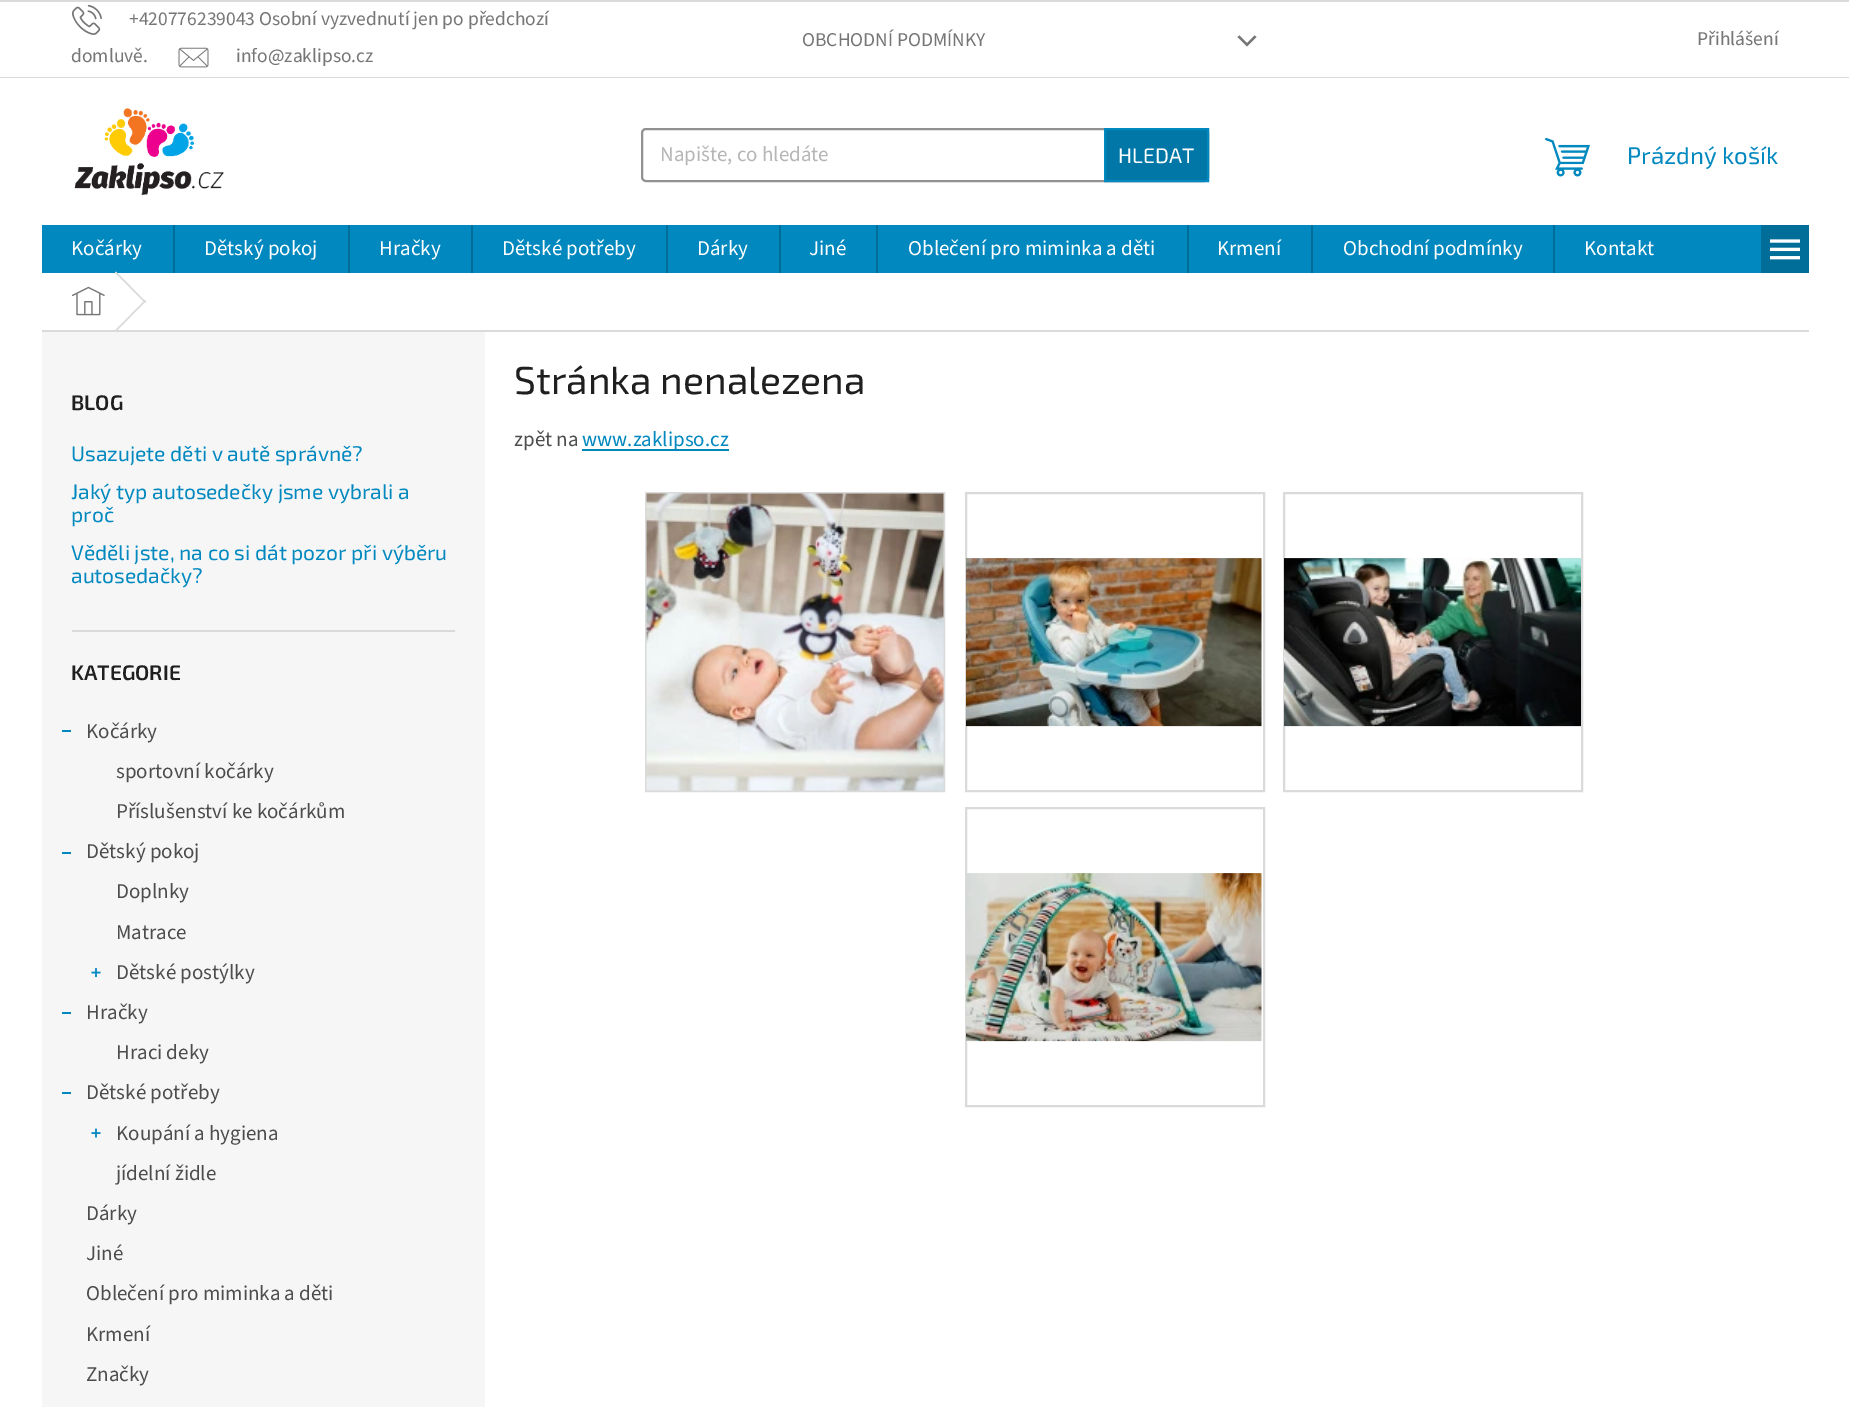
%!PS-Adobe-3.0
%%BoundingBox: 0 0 1849 1407
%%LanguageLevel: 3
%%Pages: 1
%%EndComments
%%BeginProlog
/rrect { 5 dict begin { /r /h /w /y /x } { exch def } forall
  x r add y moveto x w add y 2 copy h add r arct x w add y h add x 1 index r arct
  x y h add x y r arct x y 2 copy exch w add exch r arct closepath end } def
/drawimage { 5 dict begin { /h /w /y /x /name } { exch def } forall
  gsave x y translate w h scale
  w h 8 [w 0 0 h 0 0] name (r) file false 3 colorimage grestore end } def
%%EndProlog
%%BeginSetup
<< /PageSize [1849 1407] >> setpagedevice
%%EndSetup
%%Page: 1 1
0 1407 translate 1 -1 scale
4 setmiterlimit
1 setgray
0 0 1849 1407 rectfill
0.855 setgray
0 0 1849 2 rectfill
0 77 1849 1 rectfill
(images/1.raw) 72 4 30 31 drawimage
(images/2.raw) 178 47 31 21 drawimage
0.463 setgray
newpath 1237.5 37 moveto 1239.5 35.5 lineto 1247 43 lineto 1254.5 35.5 lineto 1256.5 37 lineto 1247 46.5 lineto closepath fill
(images/3.raw) 74 108 150 87 drawimage
0.569 setgray
2 setlinewidth
642 129 566 52 4 rrect stroke
0 0.467 0.651 setrgbcolor
newpath 1105 129 moveto 1208 129 lineto 1208 181 lineto 1105 181 lineto closepath gsave fill grestore
0 0.533 0.749 setrgbcolor
stroke
(images/4.raw) 1545 137 45 40 drawimage
42 225 1719 48 rectfill
0 0.431 0.6 setrgbcolor
173 225 2 48 rectfill
348 225 2 48 rectfill
471 225 2 48 rectfill
666 225 2 48 rectfill
779 225 2 48 rectfill
876 225 2 48 rectfill
1187 225 2 48 rectfill
1311 225 2 48 rectfill
1553 225 2 48 rectfill
1761 225 48 48 rectfill
(images/5.raw) 1770 239 30 21 drawimage
0.855 setgray
42 330 1767 2 rectfill
(images/6.raw) 71 286 34 30 drawimage
newpath 115 272.5 moveto 116 271.5 lineto 146 302 lineto 145 303 lineto closepath fill
newpath 145 300 moveto 146 301 lineto 116 331.5 lineto 115 330.5 lineto closepath fill
0.965 setgray
42 332 443 1075 rectfill
0.855 setgray
72 630 383 2 rectfill
0 0.533 0.749 setrgbcolor
62 730 9 2 rectfill
62 852 9 2 rectfill
(images/7.raw) 91 968 10 10 drawimage
62 1012 9 2 rectfill
62 1092 9 2 rectfill
(images/8.raw) 91 1128 10 10 drawimage
582 449 147 2 rectfill
0.855 setgray
646 493 298 298 rectstroke
(images/9.raw) 646 493 298 298 drawimage
966 493 298 298 rectstroke
(images/10.raw) 966 558 296 169 drawimage
1284 493 298 298 rectstroke
(images/11.raw) 1284 558 297 169 drawimage
966 808 298 298 rectstroke
(images/12.raw) 966 873 296 169 drawimage
/SourceSans3-Regular [19.5 0 0 -19.5 0 0] selectfont
0.463 setgray
129 25 moveto (+420776239043 Osobní vyzvednutí jen po předchozí) show
71 62 moveto (domluvě.) show
236 62 moveto (info@zaklipso.cz) show
802 46 moveto (OBCHODNÍ PODMÍNKY) show
1697 45 moveto (Přihlášení) show
/SourceSans3-Regular [21 0 0 -21 0 0] selectfont
0.714 setgray
660 161 moveto (Napište, co hledáte) show
/Exo2-Regular [21 0 0 -21 0 0] selectfont
1 setgray
1118 163 moveto (HLEDAT) show
/Exo2-Regular [24 0 0 -24 0 0] selectfont
0 0.533 0.749 setrgbcolor
1627 164 moveto (Prázdný košík) show
/SourceSans3-Regular [21 0 0 -21 0 0] selectfont
1 setgray
71 255 moveto (Kočárky) show
204 255 moveto (Dětský pokoj) show
379 255 moveto (Hračky) show
502 255 moveto (Dětské potřeby) show
697 255 moveto (Dárky) show
809 255 moveto (Jiné) show
908 255 moveto (Oblečení pro miminka a děti) show
1217 255 moveto (Krmení) show
1343 255 moveto (Obchodní podmínky) show
1584 255 moveto (Kontakt) show
/Exo2-SemiBold [21 0 0 -21 0 0] selectfont
0.122 setgray
71 410 moveto (BLOG) show
/Exo2-Regular [21 0 0 -21 0 0] selectfont
0 0.533 0.749 setrgbcolor
71 461 moveto (Usazujete děti v autě správně?) show
71 499 moveto (Jaký typ autosedečky jsme vybrali a) show
71 522 moveto (proč) show
71 560 moveto (Věděli jste, na co si dát pozor při výběru) show
71 583 moveto (autosedačky?) show
/Exo2-SemiBold [21 0 0 -21 0 0] selectfont
0.122 setgray
71 680 moveto (KATEGORIE) show
/SourceSans3-Regular [21 0 0 -21 0 0] selectfont
0.302 setgray
86 738 moveto (Kočárky) show
116 778 moveto (sportovní kočárky) show
116 818 moveto (Příslušenství ke kočárkům) show
86 858 moveto (Dětský pokoj) show
116 898 moveto (Doplnky) show
116 939 moveto (Matrace) show
116 979 moveto (Dětské postýlky) show
86 1019 moveto (Hračky) show
116 1059 moveto (Hraci deky) show
86 1099 moveto (Dětské potřeby) show
116 1140 moveto (Koupání a hygiena) show
116 1180 moveto (jídelní židle) show
86 1220 moveto (Dárky) show
86 1260 moveto (Jiné) show
86 1300 moveto (Oblečení pro miminka a děti) show
86 1341 moveto (Krmení) show
86 1381 moveto (Značky) show
/Exo2-Regular [39 0 0 -39 0 0] selectfont
0.122 setgray
514 394 moveto (Stránka nenalezena) show
/SourceSans3-Regular [21 0 0 -21 0 0] selectfont
0.302 setgray
514 446 moveto (zpět na) show
0 0.533 0.749 setrgbcolor
582 446 moveto (www.zaklipso.cz) show
showpage
%%EOF
